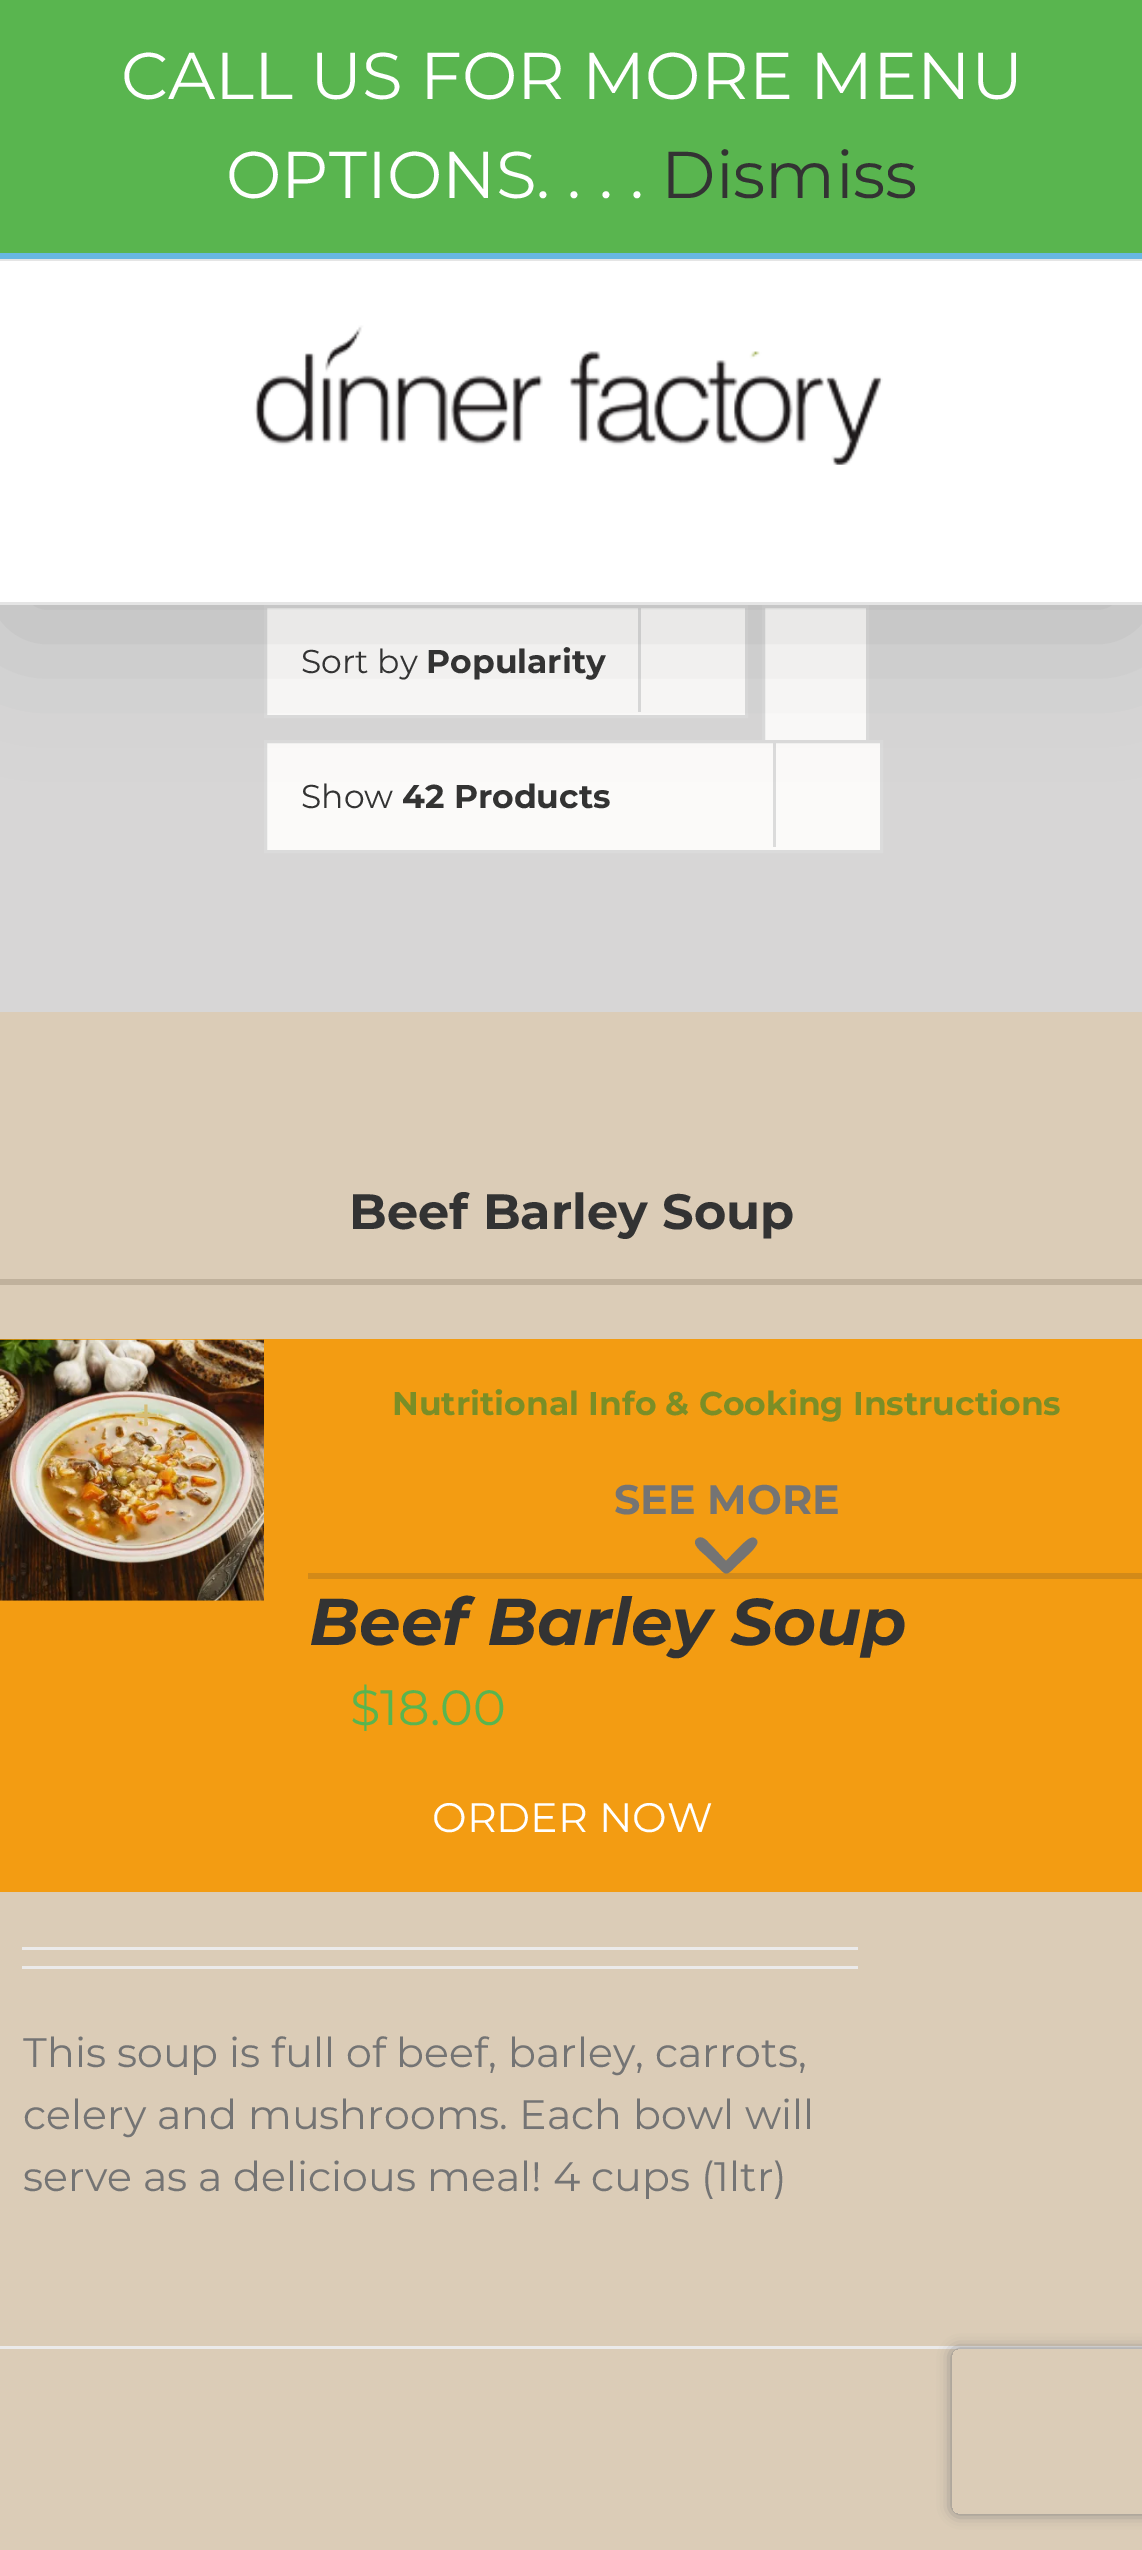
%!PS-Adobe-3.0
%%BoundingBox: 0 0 1142 2550
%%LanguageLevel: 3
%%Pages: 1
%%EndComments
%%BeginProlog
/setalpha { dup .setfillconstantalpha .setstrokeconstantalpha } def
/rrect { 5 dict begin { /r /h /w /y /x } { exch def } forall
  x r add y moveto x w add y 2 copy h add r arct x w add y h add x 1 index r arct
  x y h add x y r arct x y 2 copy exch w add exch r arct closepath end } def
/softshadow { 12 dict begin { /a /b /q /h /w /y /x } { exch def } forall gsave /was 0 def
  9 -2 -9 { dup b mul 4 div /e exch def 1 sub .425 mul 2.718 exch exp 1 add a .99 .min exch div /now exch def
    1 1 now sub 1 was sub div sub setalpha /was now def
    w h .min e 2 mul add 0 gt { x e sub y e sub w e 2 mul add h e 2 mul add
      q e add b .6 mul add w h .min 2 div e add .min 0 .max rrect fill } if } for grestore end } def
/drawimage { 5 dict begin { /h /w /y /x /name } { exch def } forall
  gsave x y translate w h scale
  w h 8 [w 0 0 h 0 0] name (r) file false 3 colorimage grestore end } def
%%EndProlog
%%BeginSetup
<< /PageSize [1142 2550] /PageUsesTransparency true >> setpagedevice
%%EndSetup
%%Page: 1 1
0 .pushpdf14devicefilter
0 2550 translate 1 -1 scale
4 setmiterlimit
0.843 0.839 0.839 setrgbcolor
0 0 1142 2550 rectfill
0.984 0.98 0.976 setrgbcolor
newpath 265.5 606.5 moveto 746.5 606.5 lineto 746.5 716.5 lineto 265.5 716.5 lineto closepath gsave fill grestore
0.859 setgray
3 setlinewidth
stroke
638 605 3 107 rectfill
0.984 0.98 0.976 setrgbcolor
765 608 101 132 rectfill
0.859 setgray
763.5 606.5 104 192 rectstroke
0.984 0.98 0.976 setrgbcolor
newpath 265.5 741.5 moveto 881.5 741.5 lineto 881.5 851.5 lineto 265.5 851.5 lineto closepath gsave fill grestore
0.859 setgray
stroke
773 740 3 107 rectfill
0 setgray
6 157 1133 470 0 69 0.14 softshadow
0.349 0.71 0.31 setrgbcolor
0 0 1142 253 rectfill
0.404 0.718 0.882 setrgbcolor
0 253 1142 6 rectfill
0.898 setgray
0 259 1142 2 rectfill
1 setgray
0 261 1142 341 rectfill
0.898 setgray
0 602 1142 3 rectfill
(images/1.raw) 254 325 629 140 drawimage
0.859 0.8 0.718 setrgbcolor
0 1012 1142 1334 rectfill
0.922 0.918 0.918 setrgbcolor
0 2346 1142 3 rectfill
0.753 0.694 0.612 setrgbcolor
0 1279 1142 6 rectfill
0.953 0.612 0.071 setrgbcolor
0 1339 1142 553 rectfill
(images/2.raw) 0 1339 264 262 drawimage
0.827 0.541 0.094 setrgbcolor
308 1573 834 6 rectfill
0.455 setgray
newpath 723 1572 moveto 727 1576 731 1571 734 1568 curveto 752 1551 lineto 754 1548 760 1543 756 1539 curveto 755 1538 753 1537 751 1538 curveto 747 1538 730 1557 726 1561 curveto 712 1546 lineto 709 1544 704 1535 698 1538 curveto 689 1543 703 1553 705 1555 curveto closepath fill
0.922 0.918 0.918 setrgbcolor
22 1947 836 3 rectfill
22 1966 836 3 rectfill
0.859 0.8 0.718 setrgbcolor
0 2349 1142 201 rectfill
gsave
newpath 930 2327 moveto 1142 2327 lineto 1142 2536 lineto 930 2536 lineto closepath 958 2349 moveto 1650 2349 lineto 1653.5 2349 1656 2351.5 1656 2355 curveto 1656 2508 lineto 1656 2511.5 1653.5 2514 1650 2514 curveto 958 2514 lineto 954.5 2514 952 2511.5 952 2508 curveto 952 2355 lineto 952 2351.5 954.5 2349 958 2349 curveto closepath eoclip newpath
0.502 setgray
952 2349 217 165 6 7 1 softshadow
grestore
/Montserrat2-Thin [66 0 0 -66 0 0] selectfont
1 setgray
121 99 moveto (CALL US FOR MORE MENU) show
226 198 moveto (OPTIONS. . . .) show
0.2 setgray
661 198 moveto (Dismiss) show
/Montserrat2-Thin [33 0 0 -33 0 0] selectfont
301 673 moveto (Sort by) show
/Montserrat-Thin [33 0 0 -33 0 0] selectfont
426 673 moveto (Popularity) show
/Montserrat2-Thin [33 0 0 -33 0 0] selectfont
301 808 moveto (Show) show
/Montserrat-Thin [33 0 0 -33 0 0] selectfont
402 808 moveto (42 Products) show
/Montserrat-Thin [49.5 0 0 -49.5 0 0] selectfont
349 1229 moveto (Beef Barley Soup) show
/LiberationSans-Regular [44 0 0 -44 0 0] selectfont
0.831 0.737 0.467 setrgbcolor
133 1430 moveto (+) show
/Montserrat-Thin [33 0 0 -33 0 0] selectfont
0.482 0.557 0.149 setrgbcolor
392 1415 moveto (Nutritional Info & Cooking Instructions) show
/Montserrat-Thin [41.25 0 0 -41.25 0 0] selectfont
0.455 setgray
614 1514 moveto (SEE MORE) show
/Montserrat-ThinItalic [66 0 0 -66 0 0] selectfont
0.2 setgray
309 1645 moveto (Beef Barley Soup) show
/Montserrat2-Thin [49.5 0 0 -49.5 0 0] selectfont
0.349 0.71 0.31 setrgbcolor
350 1725 moveto ($18.00) show
/Montserrat2-Thin [41.25 0 0 -41.25 0 0] selectfont
1 setgray
432 1832 moveto (ORDER NOW) show
0.455 setgray
23 2067 moveto (This soup is full of beef, barley, carrots,) show
23 2129 moveto (celery and mushrooms. Each bowl will) show
23 2191 moveto (serve as a delicious meal! 4 cups \(1ltr\)) show
.poppdf14devicefilter showpage
%%EOF
